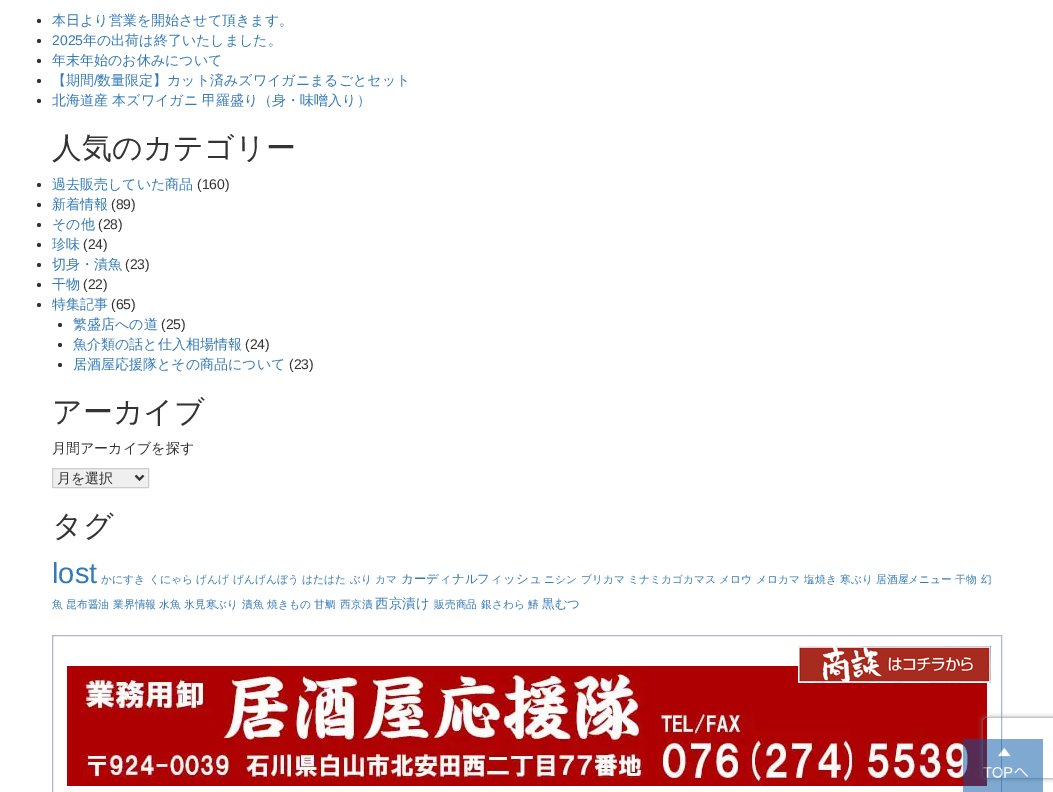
%!PS-Adobe-3.0
%%BoundingBox: 0 0 1053 792
%%LanguageLevel: 3
%%Pages: 1
%%EndComments
%%BeginProlog
/setalpha { dup .setfillconstantalpha .setstrokeconstantalpha } def
/rrect { 5 dict begin { /r /h /w /y /x } { exch def } forall
  x r add y moveto x w add y 2 copy h add r arct x w add y h add x 1 index r arct
  x y h add x y r arct x y 2 copy exch w add exch r arct closepath end } def
/softshadow { 12 dict begin { /a /b /q /h /w /y /x } { exch def } forall gsave /was 0 def
  9 -2 -9 { dup b mul 4 div /e exch def 1 sub .425 mul 2.718 exch exp 1 add a .99 .min exch div /now exch def
    1 1 now sub 1 was sub div sub setalpha /was now def
    w h .min e 2 mul add 0 gt { x e sub y e sub w e 2 mul add h e 2 mul add
      q e add b .6 mul add w h .min 2 div e add .min 0 .max rrect fill } if } for grestore end } def
/drawimage { 5 dict begin { /h /w /y /x /name } { exch def } forall
  gsave x y translate w h scale
  w h 8 [w 0 0 h 0 0] name (r) file false 3 colorimage grestore end } def
%%EndProlog
%%BeginSetup
<< /PageSize [1053 792] /PageUsesTransparency true >> setpagedevice
%%EndSetup
%%Page: 1 1
0 .pushpdf14devicefilter
0 792 translate 1 -1 scale
4 setmiterlimit
1 setgray
0 0 1053 792 rectfill
0.2 setgray
newpath 39 21 2 0 360 arc closepath fill
newpath 39 41 2 0 360 arc closepath fill
newpath 39 61 2 0 360 arc closepath fill
newpath 39 81 2 0 360 arc closepath fill
newpath 39 101 2 0 360 arc closepath fill
newpath 39 185 2 0 360 arc closepath fill
newpath 39 205 2 0 360 arc closepath fill
newpath 39 225 2 0 360 arc closepath fill
newpath 39 245 2 0 360 arc closepath fill
newpath 39 265 2 0 360 arc closepath fill
newpath 39 285 2 0 360 arc closepath fill
newpath 39 305 2 0 360 arc closepath fill
newpath 60 325 2 0 360 arc closepath fill
newpath 60 345 2 0 360 arc closepath fill
newpath 60 365 2 0 360 arc closepath fill
0.937 setgray
newpath 52.5 468.5 moveto 148.5 468.5 lineto 148.5 487.5 lineto 52.5 487.5 lineto closepath gsave fill grestore
0.8 setgray
stroke
0.2 setgray
2 setlinewidth
newpath 135.5 475.5 moveto 139.5 479.5 lineto 143.5 475.5 lineto stroke
0.678 0.71 0.827 setrgbcolor
1 setlinewidth
52.5 635.5 949 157 rectstroke
(images/2.raw) 67 666 920 120 drawimage
(images/1.raw) 798 646 193 37 drawimage
gsave
newpath 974 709 moveto 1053 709 lineto 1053 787 lineto 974 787 lineto closepath 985 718 moveto 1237 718 lineto 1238 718 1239 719 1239 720 curveto 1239 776 lineto 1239 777 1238 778 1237 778 curveto 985 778 lineto 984 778 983 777 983 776 curveto 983 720 lineto 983 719 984 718 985 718 curveto closepath eoclip newpath
0.502 setgray
983 718 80 60 2 2.5 1 softshadow
grestore
(images/3.raw) 963 739 80 53 drawimage
/WenQuanYiZenHei-Medium [14 0 0 -14 0 0] selectfont
0.2 0.478 0.718 setrgbcolor
52 25 moveto (本日より営業を開始させて頂きます。) show
/LiberationSans-Regular [14 0 0 -14 0 0] selectfont
52 45 moveto (2025) show
/WenQuanYiZenHei-Medium [14 0 0 -14 0 0] selectfont
83 45 moveto (年の出荷は終了いたしました。) show
52 65 moveto (年末年始のお休みについて) show
52 85 moveto (【期間) show
/LiberationSans-Regular [14 0 0 -14 0 0] selectfont
94 85 moveto (/) show
/WenQuanYiZenHei-Medium [14 0 0 -14 0 0] selectfont
97 85 moveto (数量限定】カット済みズワイガニまるごとセット) show
52 105 moveto (北海道産 本ズワイガニ 甲羅盛り（身・味噌入り）) show
/WenQuanYiZenHei-Medium [30 0 0 -30 0 0] selectfont
0.2 setgray
52 158 moveto (人気のカテゴリー) show
/WenQuanYiZenHei-Medium [14 0 0 -14 0 0] selectfont
0.2 0.478 0.718 setrgbcolor
52 189 moveto (過去販売していた商品) show
/LiberationSans-Regular [14 0 0 -14 0 0] selectfont
0.2 setgray
197 189 moveto (\(160\)) show
/WenQuanYiZenHei-Medium [14 0 0 -14 0 0] selectfont
0.2 0.478 0.718 setrgbcolor
52 209 moveto (新着情報) show
/LiberationSans-Regular [14 0 0 -14 0 0] selectfont
0.2 setgray
111 209 moveto (\(89\)) show
/WenQuanYiZenHei-Medium [14 0 0 -14 0 0] selectfont
0.2 0.478 0.718 setrgbcolor
52 229 moveto (その他) show
/LiberationSans-Regular [14 0 0 -14 0 0] selectfont
0.2 setgray
98 229 moveto (\(28\)) show
/WenQuanYiZenHei-Medium [14 0 0 -14 0 0] selectfont
0.2 0.478 0.718 setrgbcolor
52 249 moveto (珍味) show
/LiberationSans-Regular [14 0 0 -14 0 0] selectfont
0.2 setgray
83 249 moveto (\(24\)) show
/WenQuanYiZenHei-Medium [14 0 0 -14 0 0] selectfont
0.2 0.478 0.718 setrgbcolor
52 269 moveto (切身・漬魚) show
/LiberationSans-Regular [14 0 0 -14 0 0] selectfont
0.2 setgray
125 269 moveto (\(23\)) show
/WenQuanYiZenHei-Medium [14 0 0 -14 0 0] selectfont
0.2 0.478 0.718 setrgbcolor
52 289 moveto (干物) show
/LiberationSans-Regular [14 0 0 -14 0 0] selectfont
0.2 setgray
83 289 moveto (\(22\)) show
/WenQuanYiZenHei-Medium [14 0 0 -14 0 0] selectfont
0.2 0.478 0.718 setrgbcolor
52 309 moveto (特集記事) show
/LiberationSans-Regular [14 0 0 -14 0 0] selectfont
0.2 setgray
111 309 moveto (\(65\)) show
/WenQuanYiZenHei-Medium [14 0 0 -14 0 0] selectfont
0.2 0.478 0.718 setrgbcolor
73 329 moveto (繁盛店への道) show
/LiberationSans-Regular [14 0 0 -14 0 0] selectfont
0.2 setgray
161 329 moveto (\(25\)) show
/WenQuanYiZenHei-Medium [14 0 0 -14 0 0] selectfont
0.2 0.478 0.718 setrgbcolor
73 349 moveto (魚介類の話と仕入相場情報) show
/LiberationSans-Regular [14 0 0 -14 0 0] selectfont
0.2 setgray
245 349 moveto (\(24\)) show
/WenQuanYiZenHei-Medium [14 0 0 -14 0 0] selectfont
0.2 0.478 0.718 setrgbcolor
73 369 moveto (居酒屋応援隊とその商品について) show
/LiberationSans-Regular [14 0 0 -14 0 0] selectfont
0.2 setgray
289 369 moveto (\(23\)) show
/WenQuanYiZenHei-Medium [30 0 0 -30 0 0] selectfont
52 422 moveto (アーカイブ) show
/WenQuanYiZenHei-Medium [14 0 0 -14 0 0] selectfont
52 453 moveto (月間アーカイブを探す) show
57 483 moveto (月を選択) show
/WenQuanYiZenHei-Medium [30 0 0 -30 0 0] selectfont
52 536 moveto (タグ) show
/LiberationSans-Regular [29 0 0 -29 0 0] selectfont
0.2 0.478 0.718 setrgbcolor
52 583 moveto (lost) show
/WenQuanYiZenHei-Medium [10.75 0 0 -10.75 0 0] selectfont
101 583 moveto (かにすき) show
149 583 moveto (くにゃら) show
196 583 moveto (げんげ) show
233 583 moveto (げんげんぼう) show
302 583 moveto (はたはた) show
350 583 moveto (ぶり) show
375 583 moveto (カマ) show
/WenQuanYiZenHei-Medium [12.5 0 0 -12.5 0 0] selectfont
401 583 moveto (カーディナルフィッシュ) show
/WenQuanYiZenHei-Medium [10.75 0 0 -10.75 0 0] selectfont
544 583 moveto (ニシン) show
581 583 moveto (ブリカマ) show
628 583 moveto (ミナミカゴカマス) show
719 583 moveto (メロウ) show
756 583 moveto (メロカマ) show
804 583 moveto (塩焼き) show
840 583 moveto (寒ぶり) show
876 583 moveto (居酒屋メニュー) show
955 583 moveto (干物) show
981 583 moveto (幻) show
52 608 moveto (魚) show
66 608 moveto (昆布醤油) show
113 608 moveto (業界情報) show
159 608 moveto (水魚) show
184 608 moveto (氷見寒ぶり) show
242 608 moveto (漬魚) show
267 608 moveto (焼きもの) show
314 608 moveto (甘鯛) show
340 608 moveto (西京漬) show
/WenQuanYiZenHei-Medium [13.5 0 0 -13.5 0 0] selectfont
375 608 moveto (西京漬け) show
/WenQuanYiZenHei-Medium [10.75 0 0 -10.75 0 0] selectfont
434 608 moveto (販売商品) show
481 608 moveto (銀さわら) show
528 608 moveto (鰆) show
/WenQuanYiZenHei-Medium [12.5 0 0 -12.5 0 0] selectfont
542 608 moveto (黒むつ) show
.poppdf14devicefilter showpage
%%EOF
